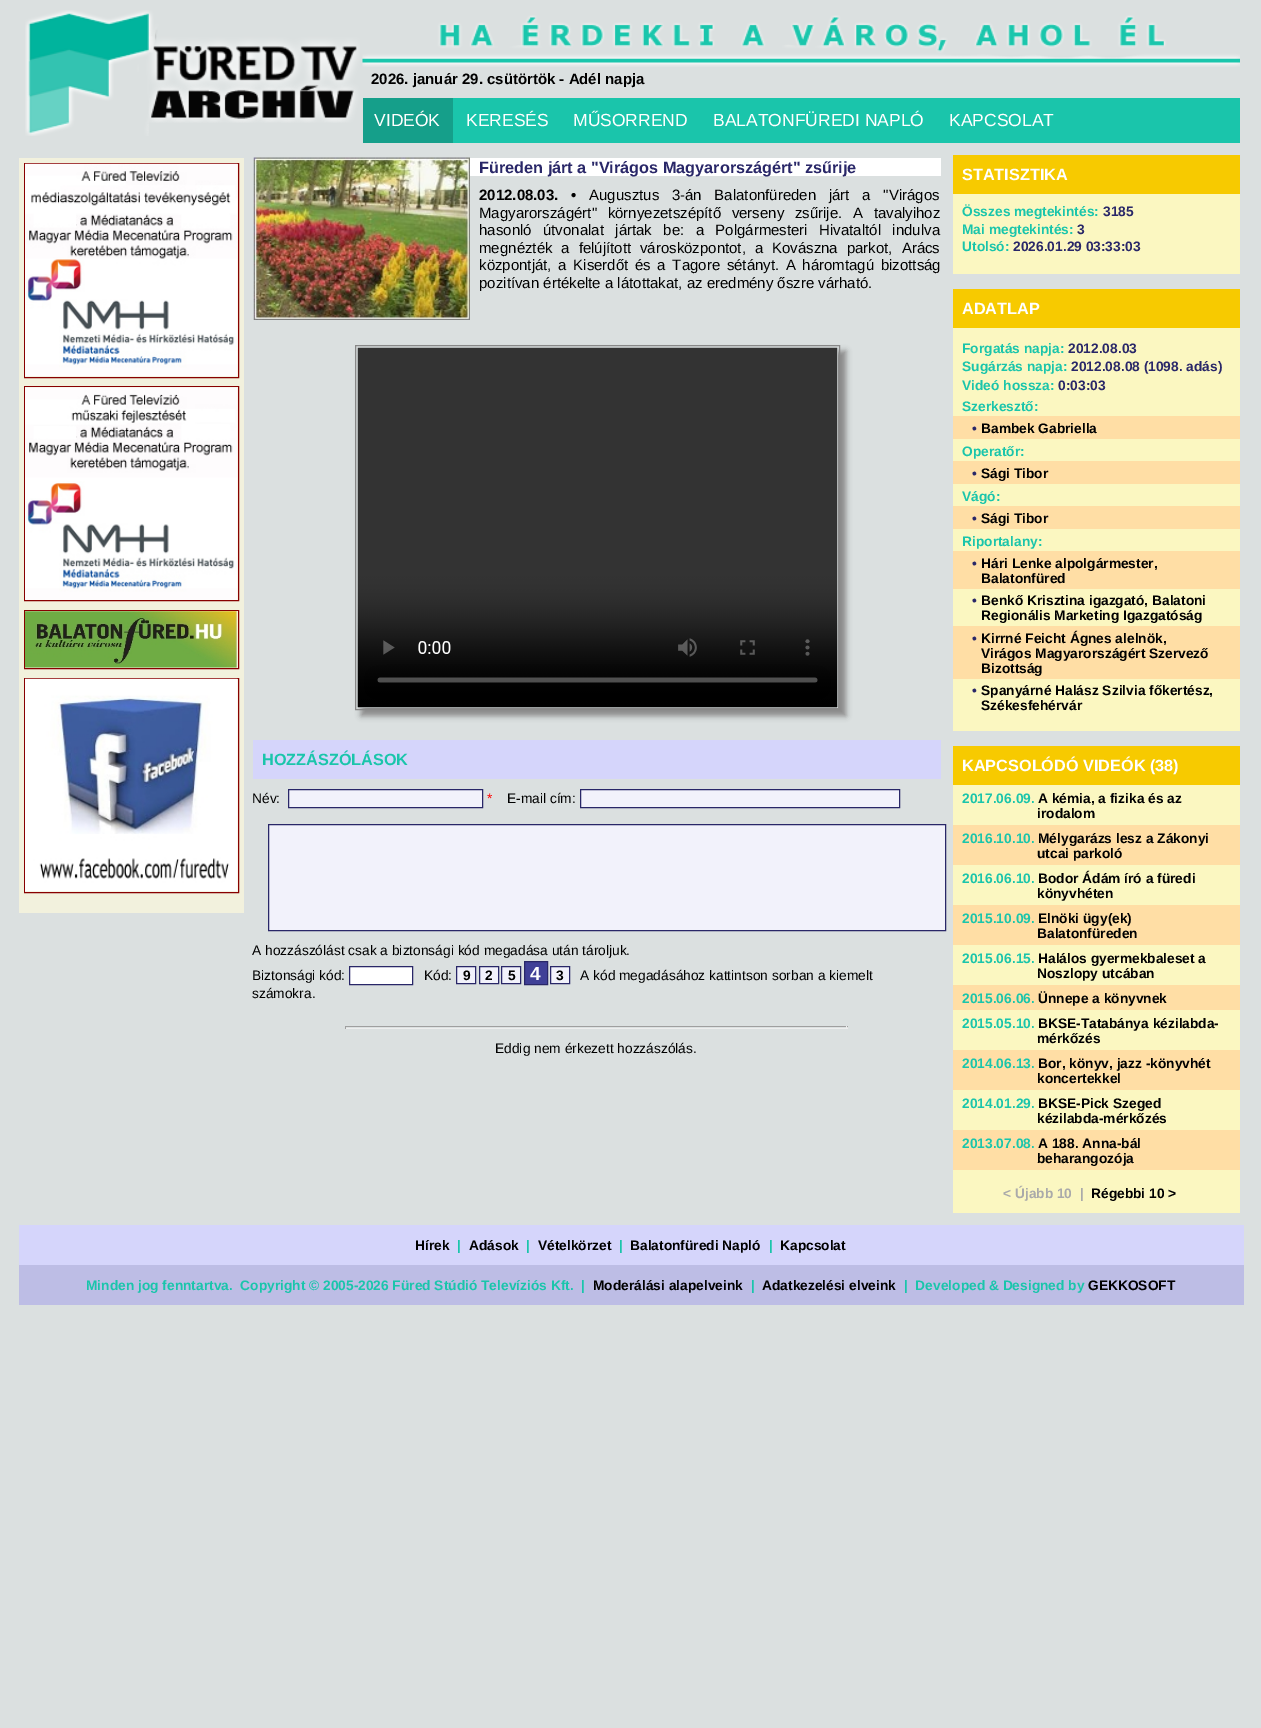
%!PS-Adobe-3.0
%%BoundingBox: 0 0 1261 1728
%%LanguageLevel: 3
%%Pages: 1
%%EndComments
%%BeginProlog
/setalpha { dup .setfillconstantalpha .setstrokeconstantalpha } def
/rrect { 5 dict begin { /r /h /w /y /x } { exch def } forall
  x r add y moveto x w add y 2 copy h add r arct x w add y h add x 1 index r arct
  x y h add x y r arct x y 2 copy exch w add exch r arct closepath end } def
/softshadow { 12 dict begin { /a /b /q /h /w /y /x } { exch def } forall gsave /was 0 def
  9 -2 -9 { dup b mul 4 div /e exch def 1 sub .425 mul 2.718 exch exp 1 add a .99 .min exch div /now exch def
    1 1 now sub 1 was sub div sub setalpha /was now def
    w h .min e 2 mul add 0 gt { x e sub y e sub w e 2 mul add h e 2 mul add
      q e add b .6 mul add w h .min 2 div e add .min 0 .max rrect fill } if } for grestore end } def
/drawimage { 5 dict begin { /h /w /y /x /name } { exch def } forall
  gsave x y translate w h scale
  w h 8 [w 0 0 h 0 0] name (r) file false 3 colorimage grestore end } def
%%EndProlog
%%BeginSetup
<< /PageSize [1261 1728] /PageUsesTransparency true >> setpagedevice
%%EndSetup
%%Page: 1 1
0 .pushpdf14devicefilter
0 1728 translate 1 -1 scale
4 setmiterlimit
0.859 0.878 0.878 setrgbcolor
0 0 1261 1728 rectfill
(images/1.raw) 25 10 335 126 drawimage
(images/2.raw) 362 15 878 52 drawimage
0.102 0.773 0.671 setrgbcolor
453 98 787 45 rectfill
0.082 0.624 0.541 setrgbcolor
363 98 90 45 rectfill
0.949 0.945 0.867 setrgbcolor
19 158 225 755 rectfill
0.533 0 0 setrgbcolor
24.5 163.5 214 214 rectstroke
(images/3.raw) 25 163 213 214 drawimage
24.5 386.5 214 214 rectstroke
(images/4.raw) 25 387 213 213 drawimage
24.5 610.5 214 58 rectstroke
(images/5.raw) 25 611 213 57 drawimage
24.5 678.5 214 214 rectstroke
(images/6.raw) 25 678 213 214 drawimage
(images/7.raw) 253 157 217 163 drawimage
1 setgray
470 158 471 18 rectfill
0.533 setgray
361 351 485 365 0 3 1 softshadow
355.5 345.5 484 364 rectstroke
(images/8.raw) 357 347 481 361 drawimage
0.835 0.835 0.984 setrgbcolor
253 740 688 39 rectfill
0.949 0.949 0.984 setrgbcolor
newpath 288.5 789.5 moveto 482.5 789.5 lineto 482.5 807.5 lineto 288.5 807.5 lineto closepath gsave fill grestore
0.161 0.153 0.408 setrgbcolor
stroke
0.949 0.949 0.984 setrgbcolor
newpath 580.5 789.5 moveto 899.5 789.5 lineto 899.5 807.5 lineto 580.5 807.5 lineto closepath gsave fill grestore
0.161 0.153 0.408 setrgbcolor
stroke
0.949 0.949 0.984 setrgbcolor
newpath 268.5 824.5 moveto 945.5 824.5 lineto 945.5 930.5 lineto 268.5 930.5 lineto closepath gsave fill grestore
0.161 0.153 0.408 setrgbcolor
stroke
1 setgray
newpath 349.5 966.5 moveto 412.5 966.5 lineto 412.5 984.5 lineto 349.5 984.5 lineto closepath gsave fill grestore
0.161 0.153 0.408 setrgbcolor
stroke
0.949 0.949 0.984 setrgbcolor
newpath 456.5 966.5 moveto 475.5 966.5 lineto 475.5 983.5 lineto 456.5 983.5 lineto closepath gsave fill grestore
0.161 0.153 0.408 setrgbcolor
stroke
0.949 0.949 0.984 setrgbcolor
newpath 479.5 966.5 moveto 498.5 966.5 lineto 498.5 983.5 lineto 479.5 983.5 lineto closepath gsave fill grestore
0.161 0.153 0.408 setrgbcolor
stroke
0.949 0.949 0.984 setrgbcolor
newpath 501.5 966.5 moveto 520.5 966.5 lineto 520.5 983.5 lineto 501.5 983.5 lineto closepath gsave fill grestore
0.161 0.153 0.408 setrgbcolor
stroke
0.251 0.251 0.592 setrgbcolor
newpath 524.5 961.5 moveto 547.5 961.5 lineto 547.5 984.5 lineto 524.5 984.5 lineto closepath gsave fill grestore
0.161 0.153 0.408 setrgbcolor
stroke
0.949 0.949 0.984 setrgbcolor
newpath 550.5 966.5 moveto 569.5 966.5 lineto 569.5 983.5 lineto 550.5 983.5 lineto closepath gsave fill grestore
0.161 0.153 0.408 setrgbcolor
stroke
0.624 setgray
345 1026 503 1 rectfill
0.933 setgray
846 1026 1 3 rectfill
345 1028 503 1 rectfill
0.624 setgray
345 1026 1 3 rectfill
0.984 0.969 0.757 setrgbcolor
953 194 287 80 rectfill
0.969 0.792 0 setrgbcolor
953 155 287 39 rectfill
0.984 0.969 0.757 setrgbcolor
953 328 287 403 rectfill
0.969 0.792 0 setrgbcolor
953 289 287 39 rectfill
1 0.871 0.647 setrgbcolor
953 416 287 23 rectfill
953 461 287 23 rectfill
953 506 287 23 rectfill
953 551 287 38 rectfill
953 626 287 53 rectfill
0.984 0.969 0.757 setrgbcolor
953 785 287 428 rectfill
0.969 0.792 0 setrgbcolor
953 746 287 39 rectfill
1 0.871 0.647 setrgbcolor
953 825 287 40 rectfill
953 905 287 40 rectfill
953 985 287 25 rectfill
953 1050 287 40 rectfill
953 1130 287 40 rectfill
0.835 0.835 0.984 setrgbcolor
19 1225 1225 40 rectfill
0.741 0.741 0.898 setrgbcolor
19 1265 1225 40 rectfill
/LiberationSans-Bold [15 0 0 -15 0 0] selectfont
0 setgray
371 84 moveto (2026. január 29. csütörtök - Adél napja) show
/LiberationSans-Regular [17.5 0 0 -17.5 0 0] selectfont
1 setgray
374 126 moveto (VIDEÓK) show
466 126 moveto (KERESÉS) show
573 126 moveto (MŰSORREND) show
713 126 moveto (BALATONFÜREDI NAPLÓ) show
949 126 moveto (KAPCSOLAT) show
/LiberationSans-Bold [16.25 0 0 -16.25 0 0] selectfont
0.161 0.153 0.408 setrgbcolor
479 173 moveto (Füreden járt a "Virágos Magyarországért" zsűrije) show
/LiberationSans-Bold [15 0 0 -15 0 0] selectfont
0 setgray
479 200 moveto 8.5 0 32 (2012.08.03. •) widthshow
/LiberationSans-Regular [15 0 0 -15 0 0] selectfont
589 200 moveto 8.5 0 32 (Augusztus 3-án Balatonfüreden járt a "Virágos) widthshow
479 218 moveto 6.5 0 32 (Magyarországért" környezetszépítő verseny zsűrije. A tavalyihoz) widthshow
479 235 moveto 7.25 0 32 (hasonló útvonalat jártak be: a Polgármesteri Hivataltól indulva) widthshow
479 253 moveto 4.75 0 32 (megnézték a felújított városközpontot, a Kovászna parkot, Arács) widthshow
479 270 moveto 2.5 0 32 (központját, a Kiserdőt és a Tagore sétányt. A háromtagú bizottság) widthshow
479 288 moveto (pozitívan értékelte a látottakat, az eredmény őszre várható.) show
/LiberationSans-Bold [16.25 0 0 -16.25 0 0] selectfont
0.102 0.773 0.671 setrgbcolor
262 765 moveto (HOZZÁSZÓLÁSOK) show
/LiberationSans-Regular [13.75 0 0 -13.75 0 0] selectfont
0 setgray
252 803 moveto (Név:) show
1 0 0 setrgbcolor
487 803 moveto (*) show
0 setgray
507 803 moveto (E-mail cím:) show
252 955 moveto (A hozzászólást csak a biztonsági kód megadása után tároljuk.) show
252 980 moveto (Biztonsági kód:) show
424 980 moveto (Kód:) show
/LiberationSans-Bold [13.75 0 0 -13.75 0 0] selectfont
463 980 moveto (9) show
485 980 moveto (2) show
508 980 moveto (5) show
/LiberationSans-Bold [19 0 0 -19 0 0] selectfont
1 setgray
530 980 moveto (4) show
/LiberationSans-Bold [13.75 0 0 -13.75 0 0] selectfont
0 setgray
556 980 moveto (3) show
/LiberationSans-Regular [13.75 0 0 -13.75 0 0] selectfont
580 980 moveto (A kód megadásához kattintson sorban a kiemelt) show
252 998 moveto (számokra.) show
495 1053 moveto (Eddig nem érkezett hozzászólás.) show
/LiberationSans-Bold [16.25 0 0 -16.25 0 0] selectfont
1 setgray
962 180 moveto (STATISZTIKA) show
/LiberationSans-Bold [13.75 0 0 -13.75 0 0] selectfont
0.102 0.773 0.671 setrgbcolor
962 216 moveto (Összes megtekintés:) show
0.161 0.153 0.408 setrgbcolor
1103 216 moveto (3185) show
0.102 0.773 0.671 setrgbcolor
962 234 moveto (Mai megtekintés:) show
0.161 0.153 0.408 setrgbcolor
1077 234 moveto (3) show
0.102 0.773 0.671 setrgbcolor
962 251 moveto (Utolsó:) show
0.161 0.153 0.408 setrgbcolor
1013 251 moveto (2026.01.29 03:33:03) show
/LiberationSans-Bold [16.25 0 0 -16.25 0 0] selectfont
1 setgray
962 314 moveto (ADATLAP) show
/LiberationSans-Bold [13.75 0 0 -13.75 0 0] selectfont
0.102 0.773 0.671 setrgbcolor
962 353 moveto (Forgatás napja:) show
0.161 0.153 0.408 setrgbcolor
1068 353 moveto (2012.08.03) show
0.102 0.773 0.671 setrgbcolor
962 371 moveto (Sugárzás napja:) show
0.161 0.153 0.408 setrgbcolor
1071 371 moveto (2012.08.08 \(1098. adás\)) show
0.102 0.773 0.671 setrgbcolor
962 390 moveto (Videó hossza:) show
0.161 0.153 0.408 setrgbcolor
1058 390 moveto (0:03:03) show
0.102 0.773 0.671 setrgbcolor
962 411 moveto (Szerkesztő:) show
0.161 0.153 0.408 setrgbcolor
972 433 moveto (•) show
0 setgray
981 433 moveto (Bambek Gabriella) show
0.102 0.773 0.671 setrgbcolor
962 456 moveto (Operatőr:) show
0.161 0.153 0.408 setrgbcolor
972 478 moveto (•) show
0 setgray
981 478 moveto (Sági Tibor) show
0.102 0.773 0.671 setrgbcolor
962 501 moveto (Vágó:) show
0.161 0.153 0.408 setrgbcolor
972 523 moveto (•) show
0 setgray
981 523 moveto (Sági Tibor) show
0.102 0.773 0.671 setrgbcolor
962 546 moveto (Riportalany:) show
0.161 0.153 0.408 setrgbcolor
972 568 moveto (•) show
0 setgray
981 568 moveto (Hári Lenke alpolgármester,) show
981 583 moveto (Balatonfüred) show
0.161 0.153 0.408 setrgbcolor
972 605 moveto (•) show
0 setgray
981 605 moveto (Benkő Krisztina igazgató, Balatoni) show
981 620 moveto (Regionális Marketing Igazgatóság) show
0.161 0.153 0.408 setrgbcolor
972 643 moveto (•) show
0 setgray
981 643 moveto (Kirrné Feicht Ágnes alelnök,) show
981 658 moveto (Virágos Magyarországért Szervező) show
981 673 moveto (Bizottság) show
0.161 0.153 0.408 setrgbcolor
972 695 moveto (•) show
0 setgray
981 695 moveto (Spanyárné Halász Szilvia főkertész,) show
981 710 moveto (Székesfehérvár) show
/LiberationSans-Bold [16.25 0 0 -16.25 0 0] selectfont
1 setgray
962 771 moveto (KAPCSOLÓDÓ VIDEÓK \(38\)) show
/LiberationSans-Bold [13.75 0 0 -13.75 0 0] selectfont
0.102 0.773 0.671 setrgbcolor
962 803 moveto (2017.06.09.) show
0 setgray
1038 803 moveto (A kémia, a fizika és az) show
1037 818 moveto (irodalom) show
0.102 0.773 0.671 setrgbcolor
962 843 moveto (2016.10.10.) show
0 setgray
1038 843 moveto (Mélygarázs lesz a Zákonyi) show
1037 858 moveto (utcai parkoló) show
0.102 0.773 0.671 setrgbcolor
962 883 moveto (2016.06.10.) show
0 setgray
1038 883 moveto (Bodor Ádám író a füredi) show
1037 898 moveto (könyvhéten) show
0.102 0.773 0.671 setrgbcolor
962 923 moveto (2015.10.09.) show
0 setgray
1038 923 moveto (Elnöki ügy\(ek\)) show
1037 938 moveto (Balatonfüreden) show
0.102 0.773 0.671 setrgbcolor
962 963 moveto (2015.06.15.) show
0 setgray
1038 963 moveto (Halálos gyermekbaleset a) show
1037 978 moveto (Noszlopy utcában) show
0.102 0.773 0.671 setrgbcolor
962 1003 moveto (2015.06.06.) show
0 setgray
1038 1003 moveto (Ünnepe a könyvnek) show
0.102 0.773 0.671 setrgbcolor
962 1028 moveto (2015.05.10.) show
0 setgray
1038 1028 moveto (BKSE-Tatabánya kézilabda-) show
1037 1043 moveto (mérkőzés) show
0.102 0.773 0.671 setrgbcolor
962 1068 moveto (2014.06.13.) show
0 setgray
1038 1068 moveto (Bor, könyv, jazz -könyvhét) show
1037 1083 moveto (koncertekkel) show
0.102 0.773 0.671 setrgbcolor
962 1108 moveto (2014.01.29.) show
0 setgray
1038 1108 moveto (BKSE-Pick Szeged) show
1037 1123 moveto (kézilabda-mérkőzés) show
0.102 0.773 0.671 setrgbcolor
962 1148 moveto (2013.07.08.) show
0 setgray
1038 1148 moveto (A 188. Anna-bál) show
1037 1163 moveto (beharangozója) show
0.667 setgray
1003 1198 moveto (< Újabb 10  |) show
0 setgray
1091 1198 moveto (Régebbi 10 >) show
415 1250 moveto (Hírek) show
0.102 0.773 0.671 setrgbcolor
457 1250 moveto (|) show
0 setgray
469 1250 moveto (Adások) show
0.102 0.773 0.671 setrgbcolor
526 1250 moveto (|) show
0 setgray
538 1250 moveto (Vételkörzet) show
0.102 0.773 0.671 setrgbcolor
619 1250 moveto (|) show
0 setgray
630 1250 moveto (Balatonfüredi Napló) show
0.102 0.773 0.671 setrgbcolor
769 1250 moveto (|) show
0 setgray
780 1250 moveto (Kapcsolat) show
0.102 0.773 0.671 setrgbcolor
86 1290 moveto (Minden jog fenntartva.  Copyright © 2005-2026 Füred Stúdió Televíziós Kft.  |) show
0 setgray
593 1290 moveto (Moderálási alapelveink) show
0.102 0.773 0.671 setrgbcolor
751 1290 moveto (|) show
0 setgray
762 1290 moveto (Adatkezelési elveink) show
0.102 0.773 0.671 setrgbcolor
904 1290 moveto (|  Developed & Designed by) show
0 setgray
1088 1290 moveto (GEKKOSOFT) show
.poppdf14devicefilter showpage
%%EOF
